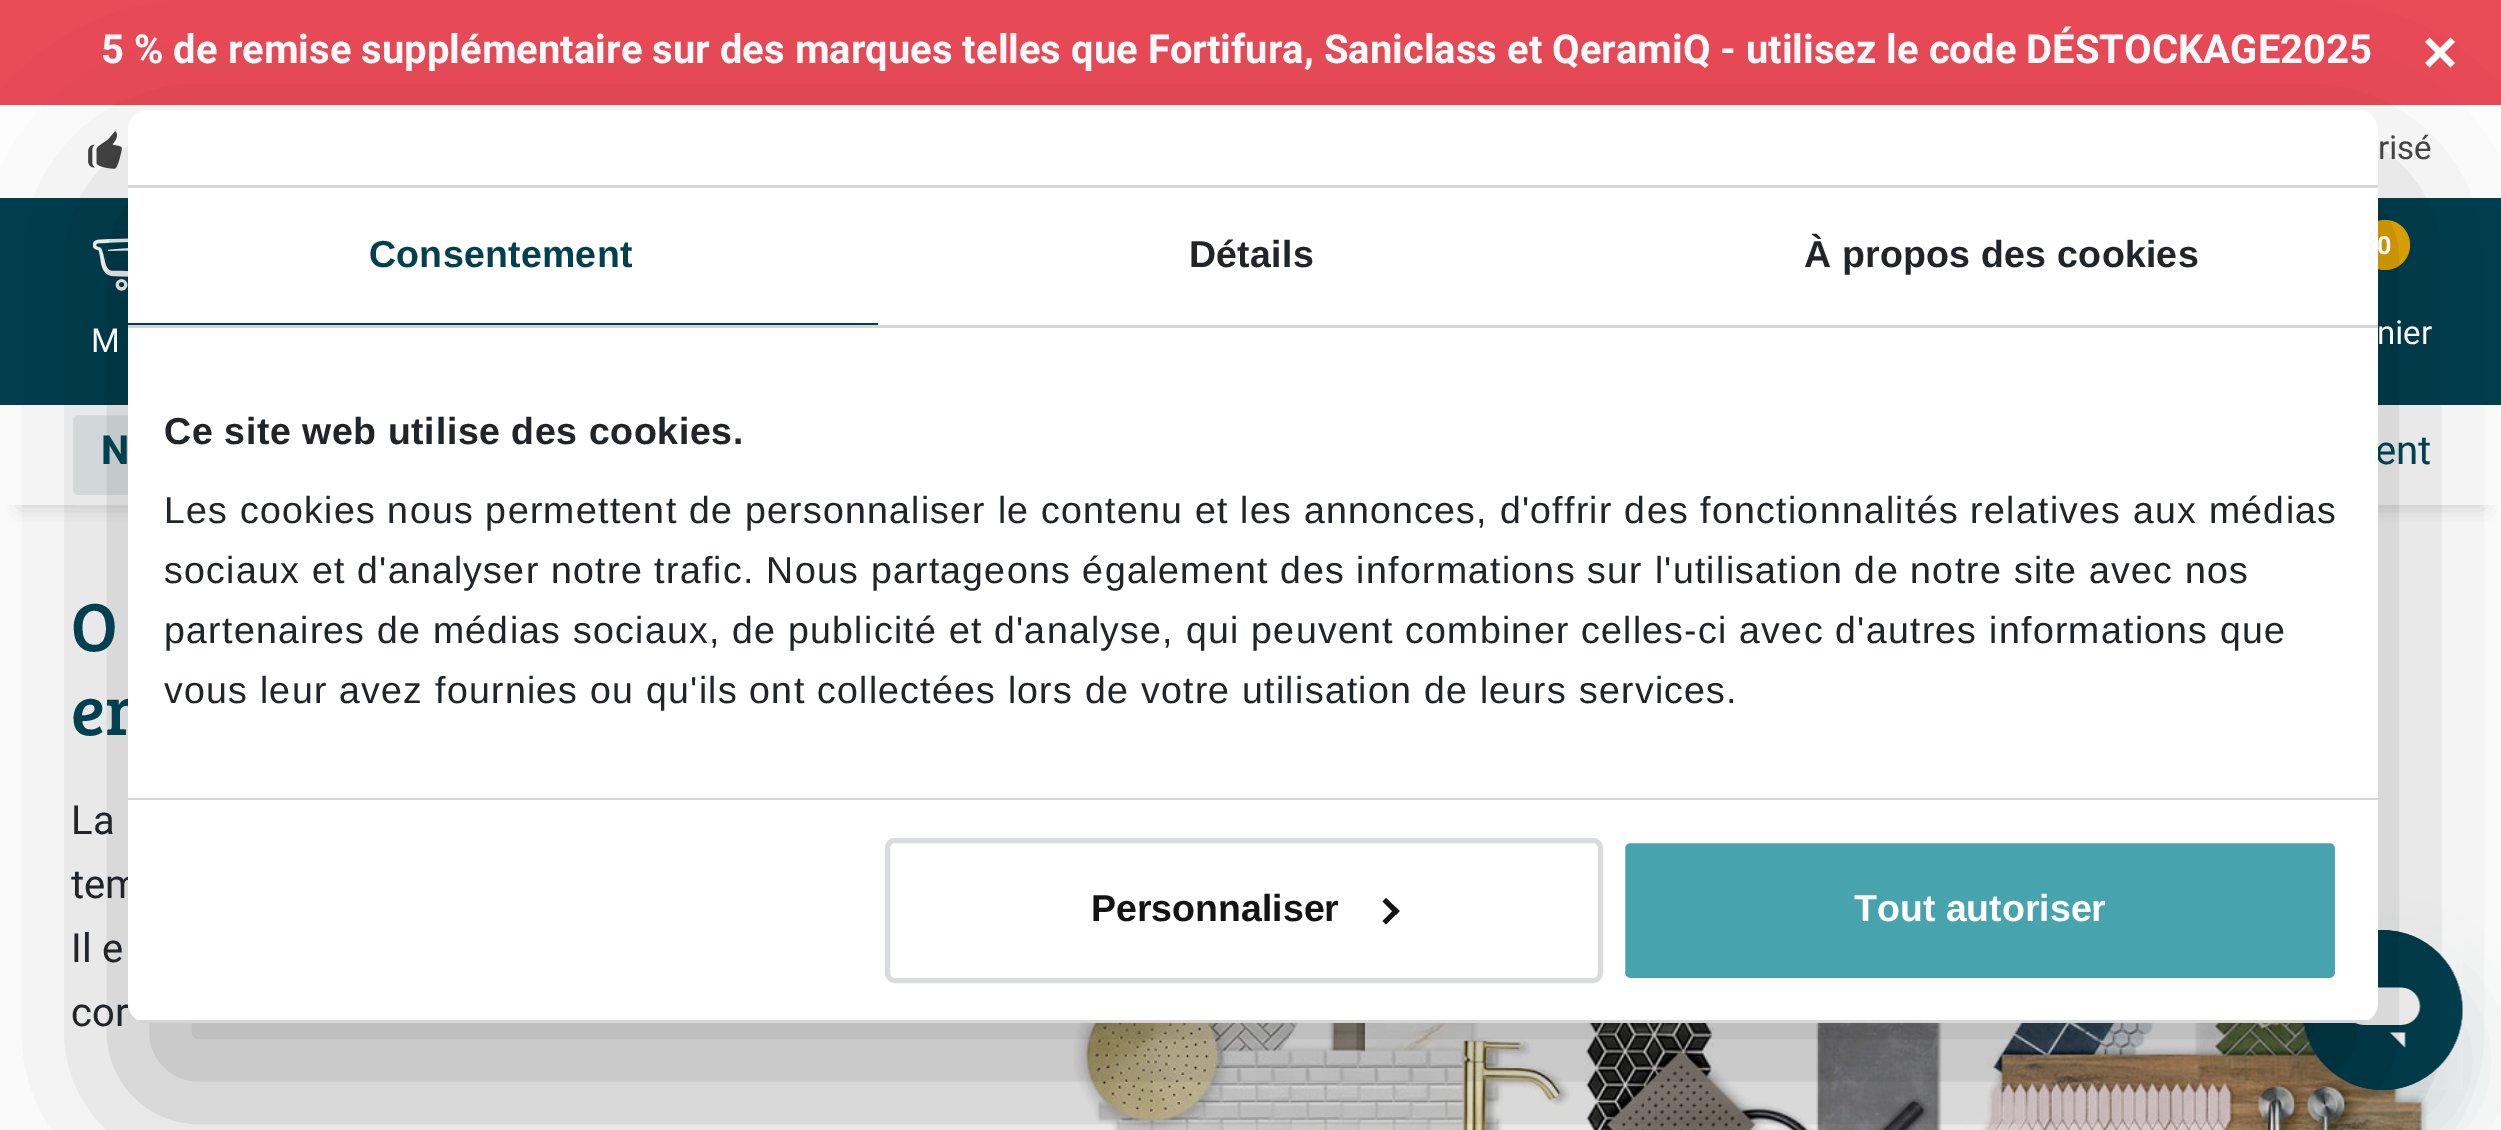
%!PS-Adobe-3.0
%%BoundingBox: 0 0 2501 1130
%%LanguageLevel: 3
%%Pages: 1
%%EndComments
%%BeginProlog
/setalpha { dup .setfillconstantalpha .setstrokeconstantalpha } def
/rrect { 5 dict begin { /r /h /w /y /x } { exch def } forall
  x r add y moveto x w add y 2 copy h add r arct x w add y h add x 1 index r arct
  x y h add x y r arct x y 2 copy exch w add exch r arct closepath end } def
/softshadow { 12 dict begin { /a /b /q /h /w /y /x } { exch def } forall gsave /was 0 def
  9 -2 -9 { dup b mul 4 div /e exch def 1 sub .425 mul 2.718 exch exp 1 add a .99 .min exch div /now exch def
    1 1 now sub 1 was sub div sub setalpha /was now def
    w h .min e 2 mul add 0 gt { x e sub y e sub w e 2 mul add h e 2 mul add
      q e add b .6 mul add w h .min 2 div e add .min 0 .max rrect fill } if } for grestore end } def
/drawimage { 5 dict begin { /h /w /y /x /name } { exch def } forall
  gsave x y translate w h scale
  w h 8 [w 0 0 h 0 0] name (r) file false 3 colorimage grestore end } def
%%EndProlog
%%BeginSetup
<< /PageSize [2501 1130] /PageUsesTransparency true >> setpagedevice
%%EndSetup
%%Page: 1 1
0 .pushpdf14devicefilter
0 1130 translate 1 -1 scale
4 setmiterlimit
1 setgray
0 0 2501 1130 rectfill
0.914 0.294 0.341 setrgbcolor
0 0 2501 105 rectfill
(images/1.raw) 2425 37 30 31 drawimage
(images/2.raw) 88 131 34 38 drawimage
0 0.251 0.314 setrgbcolor
0 198 2501 207 rectfill
(images/3.raw) 93 238 35 53 drawimage
0.925 0.678 0 setrgbcolor
newpath 2385 245 25 0 360 arc closepath fill
gsave
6 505 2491 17 rectclip
0.635 setgray
20 445 2463 60 0 10 0.5 softshadow
grestore
0.902 0.925 0.933 setrgbcolor
68 410 410 90 10 rrect gsave fill grestore
1 setgray
10 setlinewidth
stroke
(images/4.raw) 1073 612 1355 518 drawimage
0.09 0.286 0.302 setrgbcolor
2303 980 160 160 80 37.5 0.15 softshadow
(images/5.raw) 2303 930 160 160 drawimage
0 setgray
128 190 2250 913 20 85 0.3 softshadow
/Heebo-Bold [40 0 0 -40 0 0] selectfont
0.973 0.976 0.98 setrgbcolor
101 63 moveto (5 % de remise supplémentaire sur des marques telles que Fortifura, Saniclass et QeramiQ - utilisez le code DÉSTOCKAGE2025) show
/Heebo-Regular [33 0 0 -33 0 0] selectfont
0.267 setgray
2378 159 moveto (risé) show
0.973 0.976 0.98 setrgbcolor
91 352 moveto (M) show
/Heebo-Bold [25 0 0 -25 0 0] selectfont
2377 254 moveto (0) show
/Heebo-Regular [33 0 0 -33 0 0] selectfont
2377 344 moveto (nier) show
/Heebo-Bold [40 0 0 -40 0 0] selectfont
0 0.251 0.314 setrgbcolor
101 464 moveto (N) show
/Heebo-Regular [40 0 0 -40 0 0] selectfont
2375 464 moveto (ent) show
/BreeSerif-Regular [70 0 0 -70 0 0] selectfont
71 651 moveto (O) show
71 735 moveto (er) show
/Heebo-Regular [40 0 0 -40 0 0] selectfont
0.129 0.145 0.161 setrgbcolor
71 834 moveto (La) show
71 898 moveto (tem) show
71 962 moveto (Il e) show
71 1026 moveto (cor) show
1 setgray
128 110 2250 913 20 rrect fill
0.839 setgray
128 185 2250 3 rectfill
128 325 2250 3 rectfill
0 0.251 0.314 setrgbcolor
128 323 750 2 rectfill
/LiberationSans-Bold [37.5 0 0 -37.5 0 0] selectfont
369 267 moveto 0.25 0 (Consentement) ashow
0.129 0.145 0.161 setrgbcolor
1189 267 moveto 0.25 0 (Détails) ashow
1804 267 moveto 0.25 0 (À propos des cookies) ashow
0.839 setgray
128 798 2250 2 rectfill
0.129 0.145 0.161 setrgbcolor
164 444 moveto 0.6 0 (Ce site web utilise des cookies.) ashow
/LiberationSans-Regular [37.5 0 0 -37.5 0 0] selectfont
164 523 moveto 1.25 0 (Les cookies nous permettent de personnaliser le contenu et les annonces, d'offrir des fonctionnalités relatives aux médias) ashow
164 583 moveto 1.25 0 (sociaux et d'analyser notre trafic. Nous partageons également des informations sur l'utilisation de notre site avec nos) ashow
164 643 moveto 1.25 0 (partenaires de médias sociaux, de publicité et d'analyse, qui peuvent combiner celles-ci avec d'autres informations que) ashow
164 703 moveto 1.25 0 (vous leur avez fournies ou qu'ils ont collectées lors de votre utilisation de leurs services.) ashow
gsave
128 110 2250 913 20 rrect clip newpath
0.839 setgray
137 1020 2232 3 rectfill
grestore
0.855 0.859 0.871 setrgbcolor
5 setlinewidth
887.5 840.5 713 140 7.5 rrect stroke
/LiberationSans-Bold [37.5 0 0 -37.5 0 0] selectfont
0.078 setgray
1091 921 moveto (Personnaliser) show
newpath 1386 898 moveto 1399.5 911 lineto 1396 915 lineto 1382.5 901.5 lineto closepath fill
newpath 1396 907.5 moveto 1399.5 911 lineto 1386 924.5 lineto 1382.5 921 lineto closepath fill
0.278 0.639 0.678 setrgbcolor
1622.5 840.5 715 140 7.5 rrect gsave fill grestore
1 setgray
stroke
1854 921 moveto (Tout autoriser) show
.poppdf14devicefilter showpage
%%EOF
